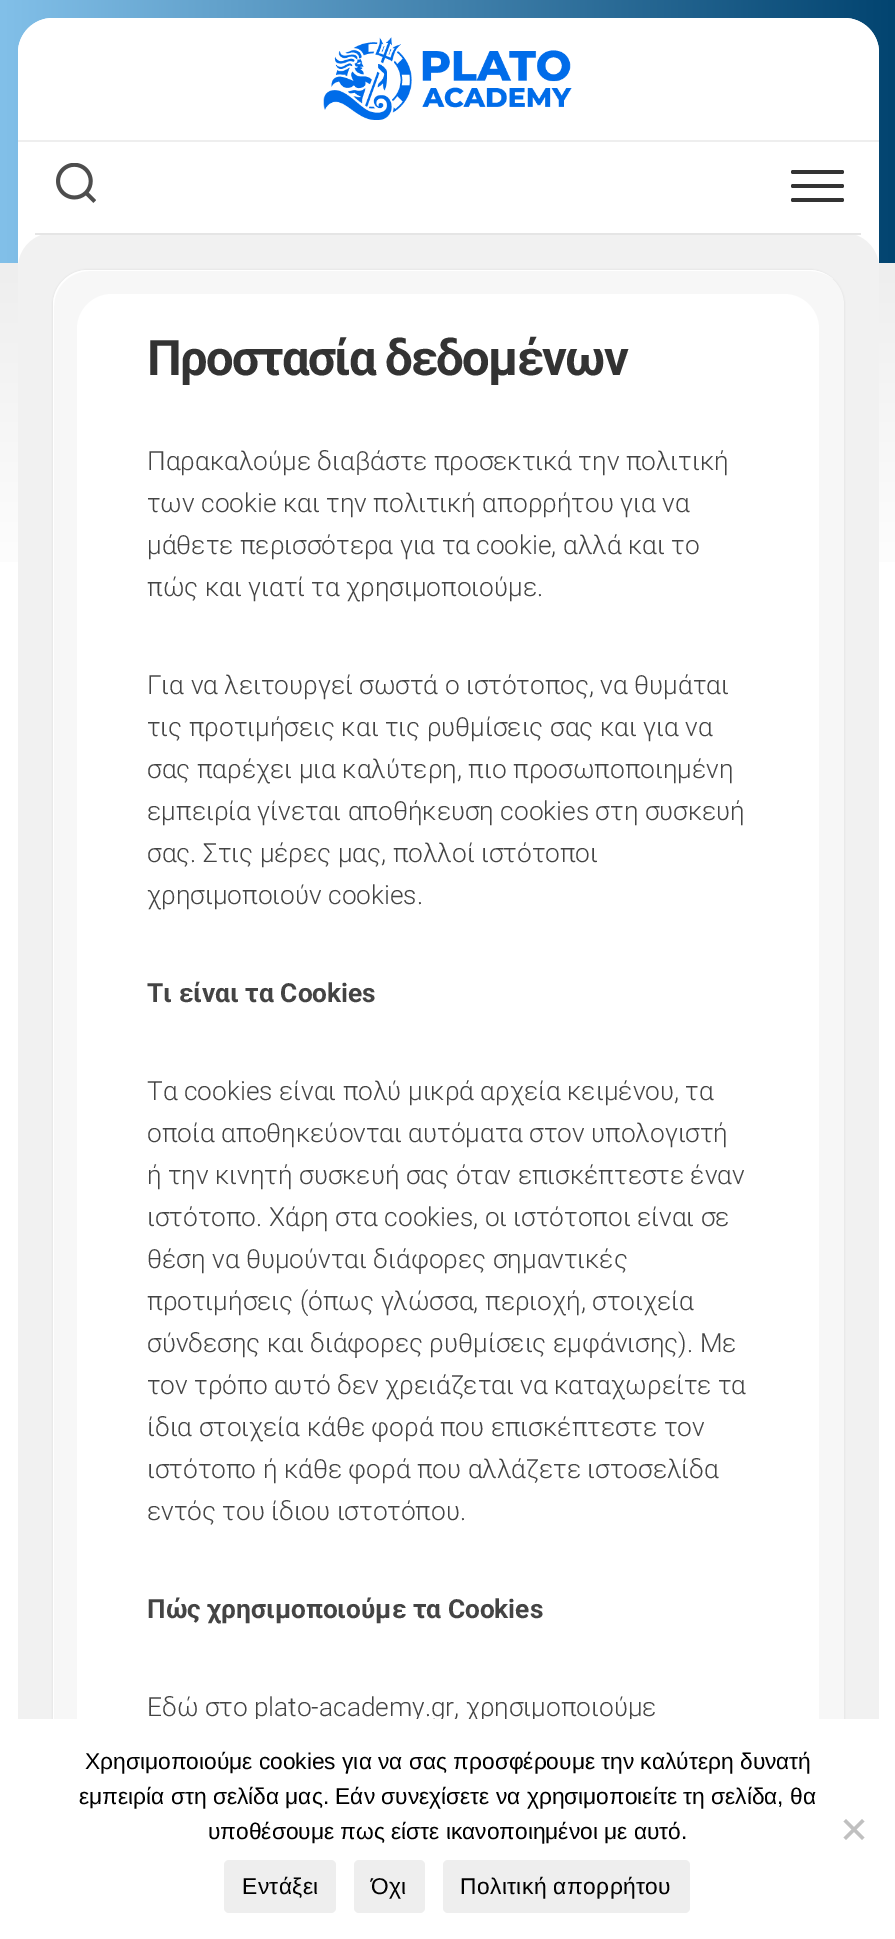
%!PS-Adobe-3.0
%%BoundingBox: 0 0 895 1939
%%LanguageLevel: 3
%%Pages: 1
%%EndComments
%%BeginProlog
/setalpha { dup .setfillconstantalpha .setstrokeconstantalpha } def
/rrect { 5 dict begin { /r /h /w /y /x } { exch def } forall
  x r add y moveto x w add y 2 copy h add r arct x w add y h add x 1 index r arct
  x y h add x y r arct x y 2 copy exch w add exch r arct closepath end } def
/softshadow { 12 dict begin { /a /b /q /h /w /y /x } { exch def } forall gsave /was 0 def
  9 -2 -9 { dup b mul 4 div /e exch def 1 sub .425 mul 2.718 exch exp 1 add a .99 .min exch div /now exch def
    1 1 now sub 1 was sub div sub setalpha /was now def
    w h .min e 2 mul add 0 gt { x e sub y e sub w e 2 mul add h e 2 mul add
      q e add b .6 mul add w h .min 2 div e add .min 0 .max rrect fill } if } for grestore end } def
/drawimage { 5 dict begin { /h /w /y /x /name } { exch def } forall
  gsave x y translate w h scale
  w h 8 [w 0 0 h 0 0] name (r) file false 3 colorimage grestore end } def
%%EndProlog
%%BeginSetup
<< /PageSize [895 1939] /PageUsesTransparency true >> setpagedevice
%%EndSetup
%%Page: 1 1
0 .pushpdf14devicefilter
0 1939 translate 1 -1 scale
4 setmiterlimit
1 setgray
0 0 895 1939 rectfill
gsave newpath 0 0 moveto 895 0 lineto 895 263 lineto 0 263 lineto closepath clip newpath
<< /ShadingType 2 /ColorSpace /DeviceRGB /Coords [0 131 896 131] /Extend [true true] /Function << /FunctionType 2 /Domain [0 1] /C0 [0.51 0.753 0.914] /C1 [0.008 0.267 0.439] /N 1 >> >> shfill grestore
gsave newpath 0 263 moveto 895 263 lineto 895 562 lineto 0 562 lineto closepath clip newpath
<< /ShadingType 2 /ColorSpace /DeviceRGB /Coords [448 613 448 263] /Extend [true true] /Function << /FunctionType 2 /Domain [0 1] /C0 [1 1 1] /C1 [0.933 0.933 0.933] /N 1 >> >> shfill grestore
18 18 861 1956 35 rrect fill
newpath 53 18 moveto 844 18 lineto 863.5 18 879 33.5 879 53 curveto 879 233 lineto 18 233 lineto 18 53 lineto 18 33.5 33.5 18 53 18 curveto closepath fill
0.933 setgray
18 140 861 2 rectfill
(images/1.raw) 323 37 249 83 drawimage
0.2 setgray
791 170 53 4 2 rrect fill
791 184 53 4 2 rrect fill
791 198 53 4 2 rrect fill
(images/2.raw) 56 163 40 40 drawimage
0.945 setgray
18 233 861 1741 35 rrect fill
0.898 setgray
35 233 826 2 rectfill
0 setgray
53 270 791 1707 35 1 0.1 softshadow
0.969 setgray
53 270 791 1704 35 rrect fill
1 setgray
newpath 89 271 moveto 810 271 lineto 819 271 827 274 833 279 curveto 826 273 818 270 809 270 curveto 88 270 lineto 69 270 53 286 53 305 curveto 53 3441 lineto 53 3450 56 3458 62 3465 curveto 57 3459 54 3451 54 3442 curveto 54 306 lineto 54 287 70 271 89 271 curveto closepath fill
77 294 742 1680 35 rrect fill
/Roboto-Bold [49 0 0 -49 0 0] selectfont
0.2 setgray
147 375 moveto -1.75 0 (Προστασία δεδομένων) ashow
/Roboto-Light [26.25 0 0 -26.25 0 0] selectfont
0.267 setgray
147 470 moveto (Παρακαλούμε διαβάστε προσεκτικά την πολιτική) show
147 512 moveto (των cookie και την πολιτική απορρήτου για να) show
147 554 moveto (μάθετε περισσότερα για τα cookie, αλλά και το) show
147 596 moveto (πώς και γιατί τα χρησιμοποιούμε.) show
147 694 moveto (Για να λειτουργεί σωστά ο ιστότοπος, να θυμάται) show
147 736 moveto (τις προτιμήσεις και τις ρυθμίσεις σας και για να) show
147 778 moveto (σας παρέχει μια καλύτερη, πιο προσωποποιημένη) show
147 820 moveto (εμπειρία γίνεται αποθήκευση cookies στη συσκευή) show
147 862 moveto (σας. Στις μέρες μας, πολλοί ιστότοποι) show
147 904 moveto (χρησιμοποιούν cookies.) show
/Roboto-Bold [26.25 0 0 -26.25 0 0] selectfont
147 1002 moveto (Τι είναι τα Cookies) show
/Roboto-Light [26.25 0 0 -26.25 0 0] selectfont
147 1100 moveto (Τα cookies είναι πολύ μικρά αρχεία κειμένου, τα) show
147 1142 moveto (οποία αποθηκεύονται αυτόματα στον υπολογιστή) show
147 1184 moveto (ή την κινητή συσκευή σας όταν επισκέπτεστε έναν) show
147 1226 moveto (ιστότοπο. Χάρη στα cookies, οι ιστότοποι είναι σε) show
147 1268 moveto (θέση να θυμούνται διάφορες σημαντικές) show
147 1310 moveto (προτιμήσεις \(όπως γλώσσα, περιοχή, στοιχεία) show
147 1352 moveto (σύνδεσης και διάφορες ρυθμίσεις εμφάνισης\). Με) show
147 1394 moveto (τον τρόπο αυτό δεν χρειάζεται να καταχωρείτε τα) show
147 1436 moveto (ίδια στοιχεία κάθε φορά που επισκέπτεστε τον) show
147 1478 moveto (ιστότοπο ή κάθε φορά που αλλάζετε ιστοσελίδα) show
147 1520 moveto (εντός του ίδιου ιστοτόπου.) show
/Roboto-Bold [26.25 0 0 -26.25 0 0] selectfont
147 1618 moveto (Πώς χρησιμοποιούμε τα Cookies) show
/Roboto-Light [26.25 0 0 -26.25 0 0] selectfont
147 1716 moveto (Εδώ στο plato-academy.gr, χρησιμοποιούμε) show
1 setgray
18 1719 861 220 rectfill
/LiberationSans-Regular [22.75 0 0 -22.75 0 0] selectfont
0 setgray
85 1769 moveto (Χρησιμοποιούμε cookies για να σας προσφέρουμε την καλύτερη δυνατή) show
79 1804 moveto (εμπειρία στη σελίδα μας. Εάν συνεχίσετε να χρησιμοποιείτε τη σελίδα, θα) show
208 1839 moveto (υποθέσουμε πως είστε ικανοποιημένοι με αυτό.) show
0.753 setgray
newpath 862 1819 moveto 864.5 1821.5 lineto 846 1840 lineto 843.5 1837.5 lineto closepath fill
newpath 843.5 1821.5 moveto 846 1819 lineto 864.5 1837.5 lineto 862 1840 lineto closepath fill
0.933 setgray
224 1860 112 53 5 rrect fill
0 setgray
242 1894 moveto 0.4 0 (Εντάξει) ashow
0.933 setgray
354 1860 71 53 5 rrect fill
0 setgray
371 1894 moveto 0.4 0 (Όχι) ashow
0.933 setgray
443 1860 247 53 5 rrect fill
0 setgray
460 1894 moveto 0.4 0 (Πολιτική απορρήτου) ashow
.poppdf14devicefilter showpage
%%EOF
